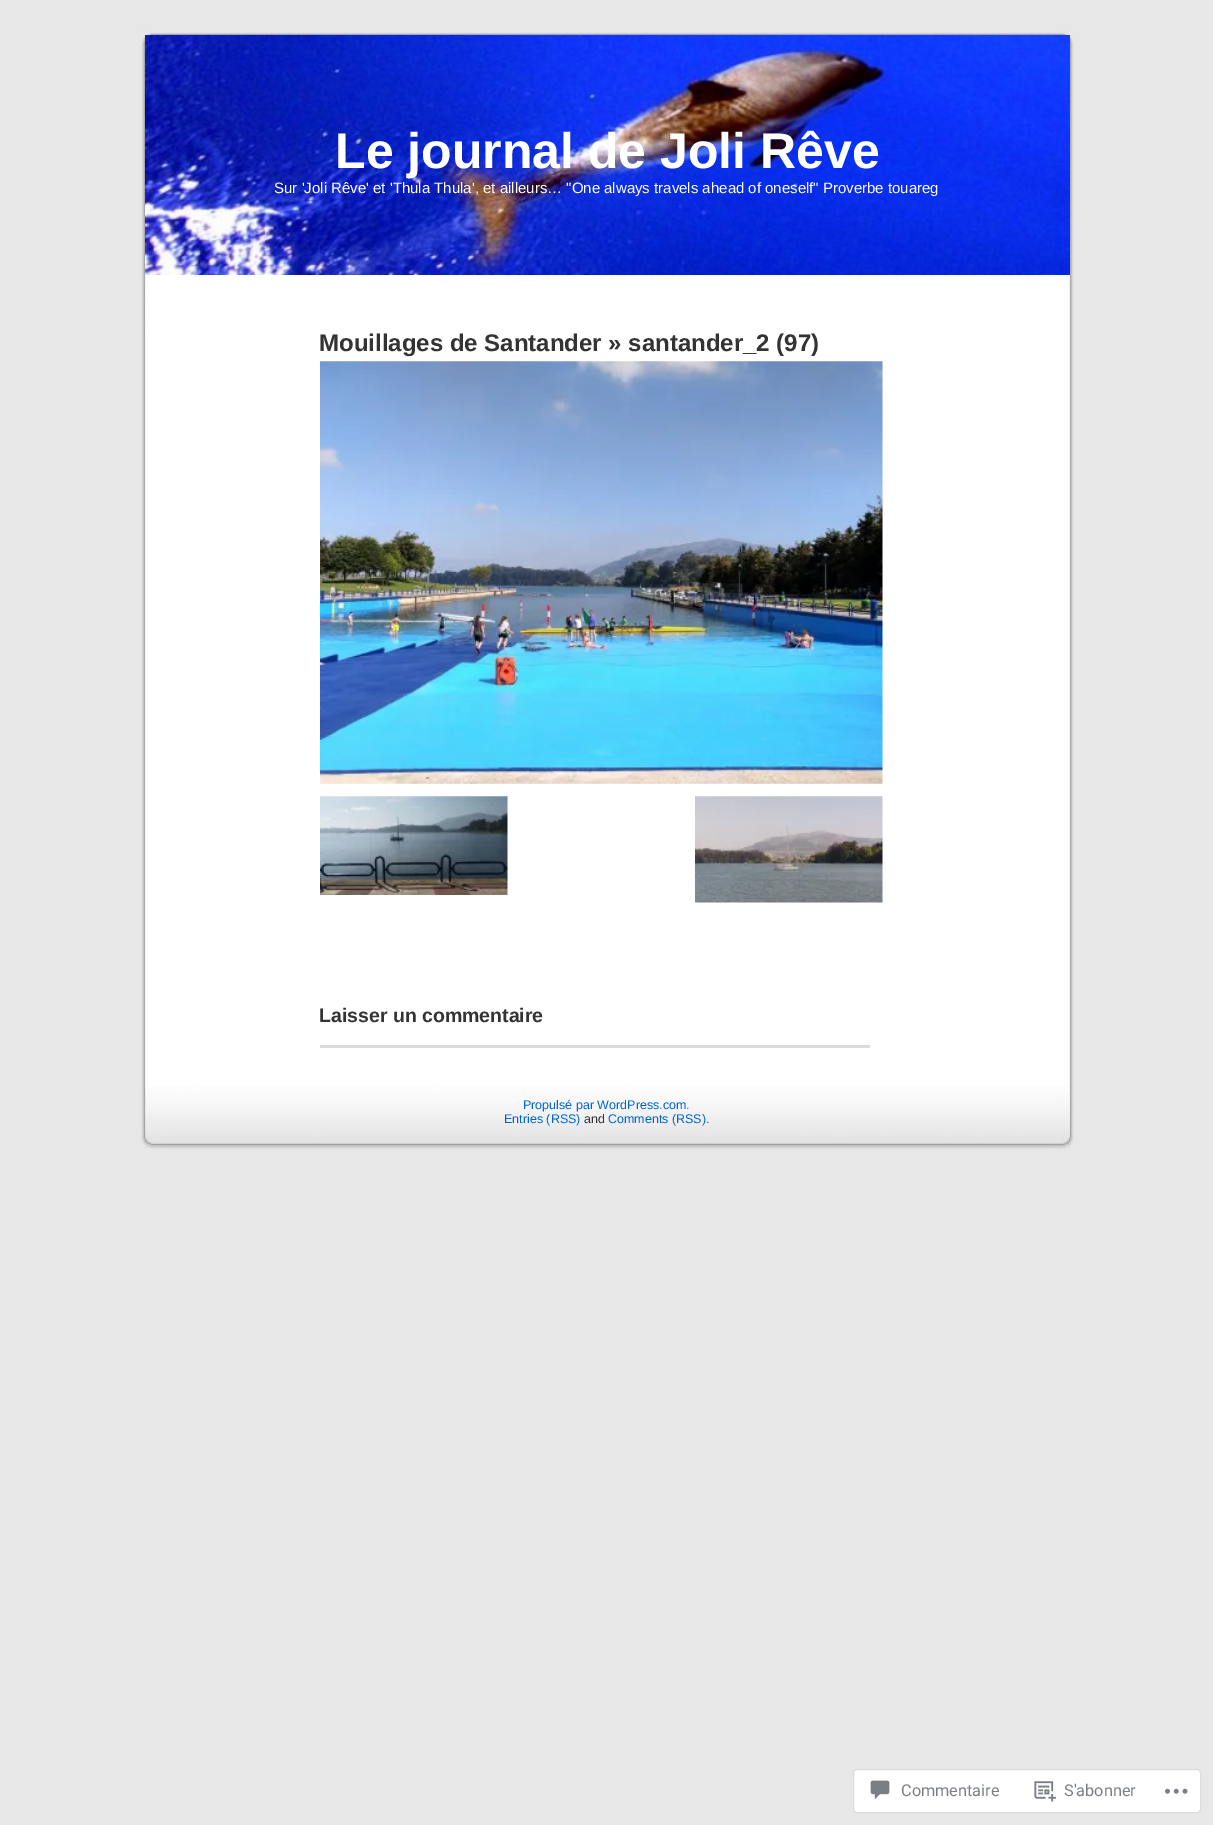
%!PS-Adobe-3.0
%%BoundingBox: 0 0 1213 1825
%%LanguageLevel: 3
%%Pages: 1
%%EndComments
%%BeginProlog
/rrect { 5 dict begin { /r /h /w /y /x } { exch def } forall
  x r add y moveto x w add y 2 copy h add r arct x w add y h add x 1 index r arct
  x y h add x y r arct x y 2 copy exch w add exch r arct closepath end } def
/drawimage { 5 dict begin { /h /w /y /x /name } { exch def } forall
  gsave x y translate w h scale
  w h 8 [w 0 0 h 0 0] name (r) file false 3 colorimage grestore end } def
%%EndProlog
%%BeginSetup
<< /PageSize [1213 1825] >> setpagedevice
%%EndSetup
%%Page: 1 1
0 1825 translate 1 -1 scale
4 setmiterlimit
0.906 setgray
0 0 1213 1825 rectfill
(images/1.raw) 141 275 933 811 drawimage
(images/2.raw) 141 25 933 250 drawimage
(images/3.raw) 145 35 925 240 drawimage
(images/4.raw) 320 361 563 423 drawimage
(images/5.raw) 320 796 188 99 drawimage
(images/6.raw) 695 796 188 107 drawimage
0.863 0.863 0.871 setrgbcolor
320 1045 550 3 rectfill
(images/7.raw) 141 1086 933 64 drawimage
1 setgray
853.5 1769.5 347 43 3.5 rrect gsave fill grestore
0.863 0.863 0.871 setrgbcolor
stroke
(images/8.raw) 870 1780 20 20 drawimage
(images/9.raw) 1034 1781 22 21 drawimage
(images/10.raw) 1165 1788 23 6 drawimage
/LiberationSans-Bold [50 0 0 -50 0 0] selectfont
1 setgray
335 168 moveto (Le journal de Joli Rêve) show
/LiberationSans-Regular [15 0 0 -15 0 0] selectfont
274 193 moveto (Sur 'Joli Rêve' et 'Thula Thula', et ailleurs… "One always travels ahead of oneself" Proverbe touareg) show
/LiberationSans-Bold [24 0 0 -24 0 0] selectfont
0.2 setgray
319 351 moveto (Mouillages de Santander » santander_2 \(97\)) show
/LiberationSans-Bold [19.5 0 0 -19.5 0 0] selectfont
319 1022 moveto (Laisser un commentaire) show
/LiberationSans-Regular [12.5 0 0 -12.5 0 0] selectfont
0 0.4 0.8 setrgbcolor
523 1109 moveto (Propulsé par WordPress.com.) show
504 1123 moveto (Entries \(RSS\)) show
0.2 setgray
584 1123 moveto (and) show
0 0.4 0.8 setrgbcolor
608 1123 moveto (Comments \(RSS\)) show
0.2 setgray
706 1123 moveto (.) show
/Roboto-Regular [16.25 0 0 -16.25 0 0] selectfont
0.478 0.494 0.518 setrgbcolor
901 1796 moveto (Commentaire) show
1064 1796 moveto (S'abonner) show
showpage
%%EOF
